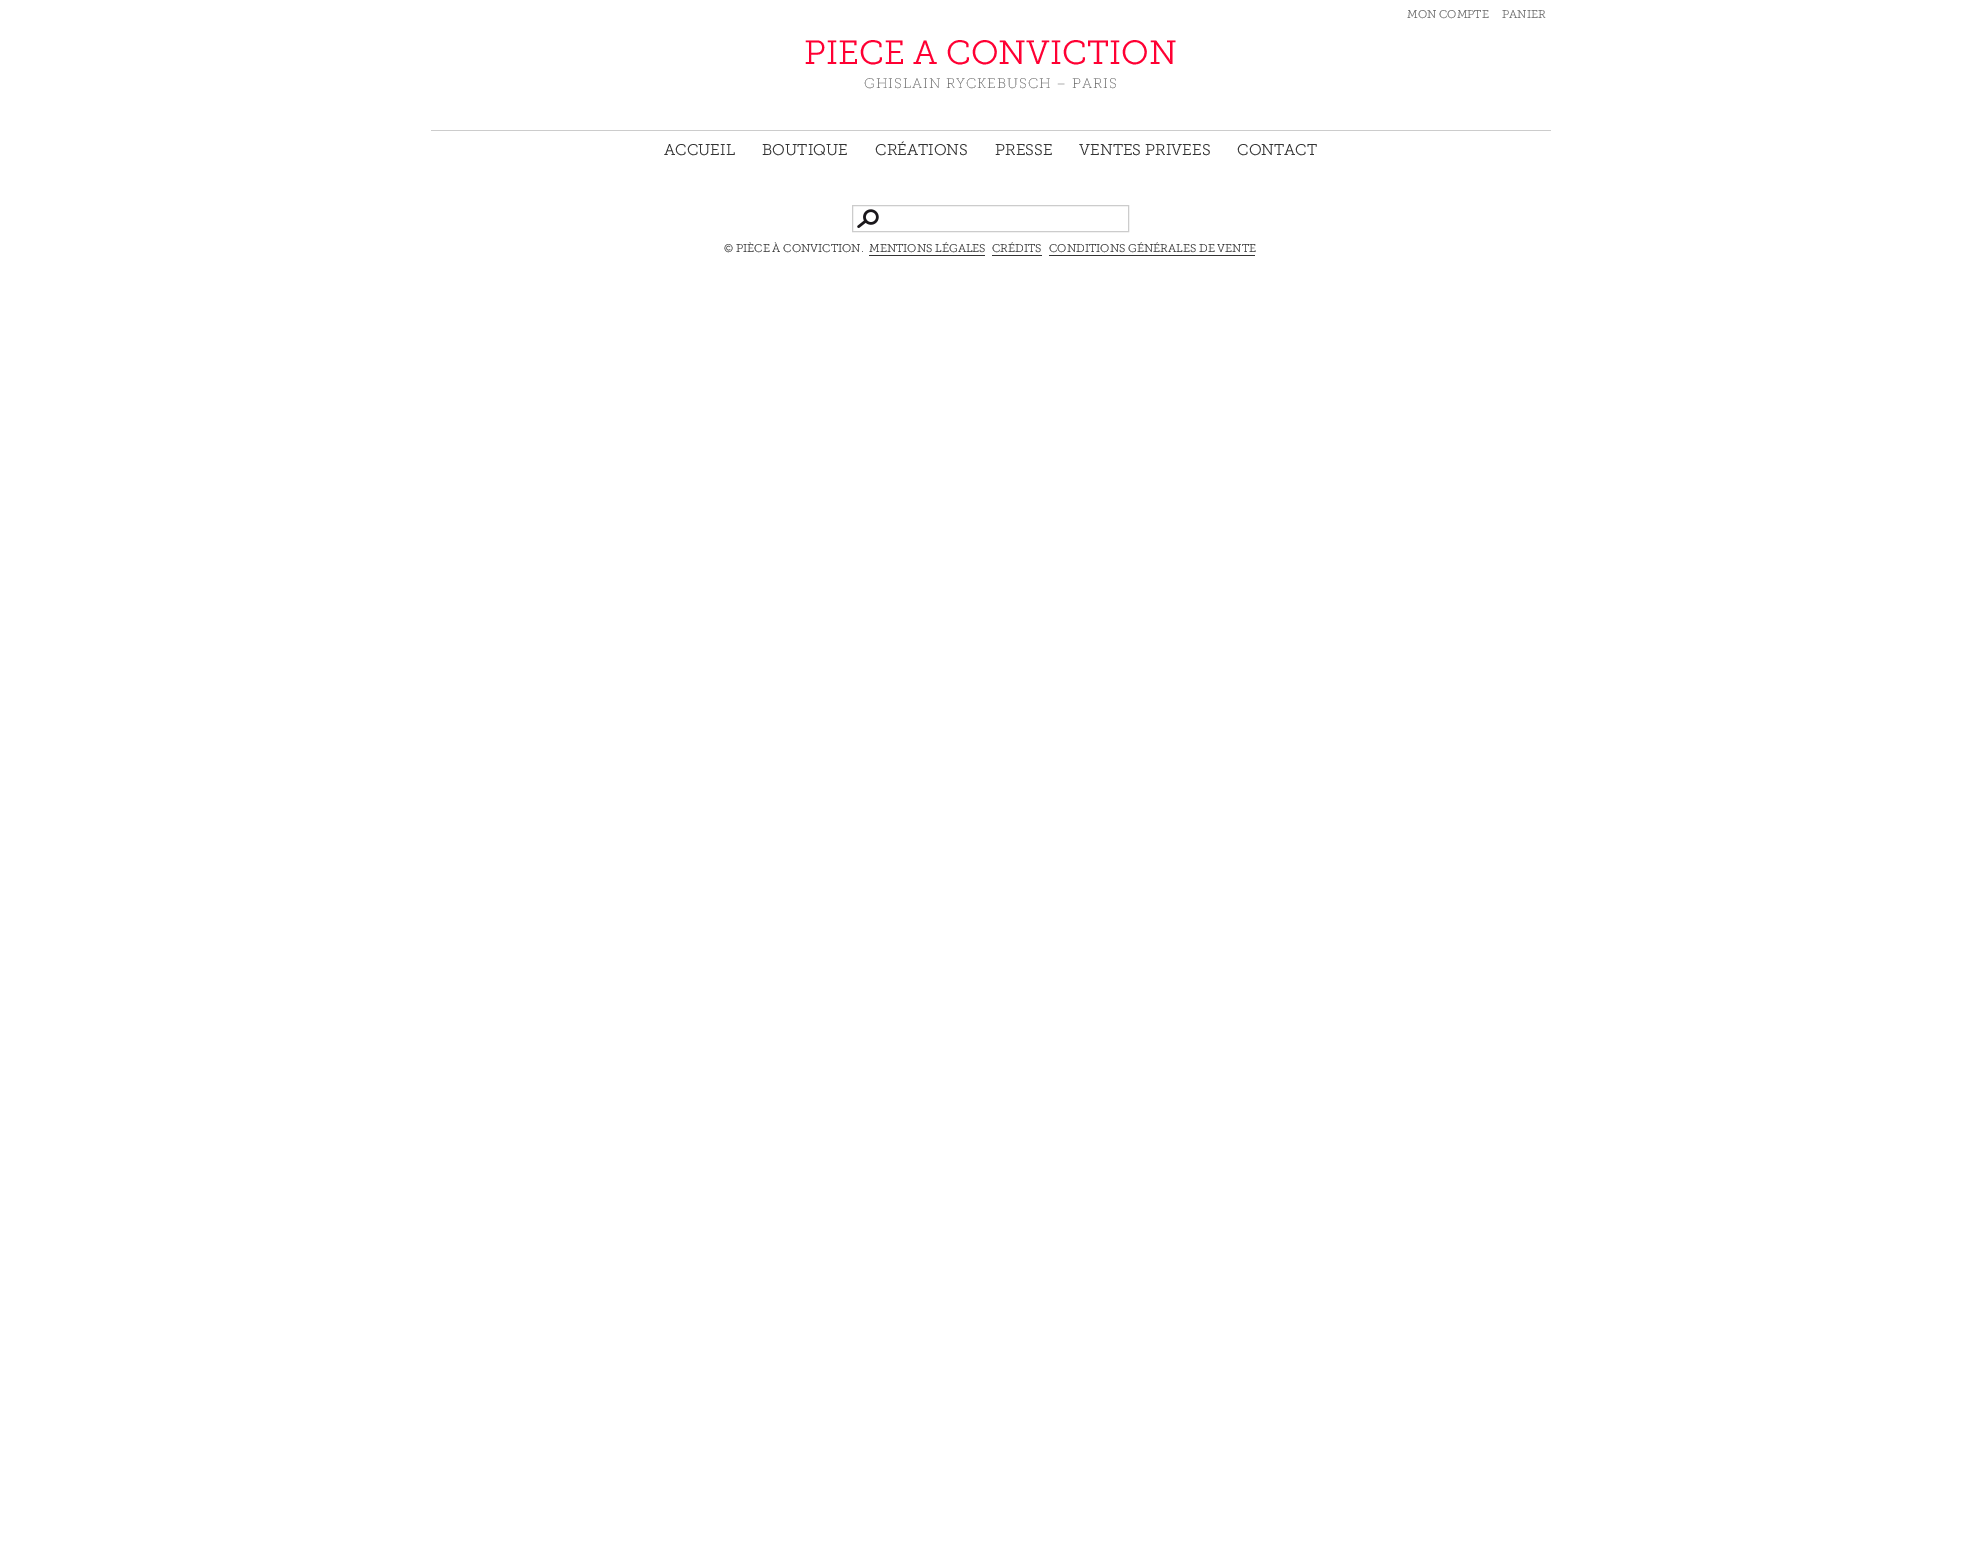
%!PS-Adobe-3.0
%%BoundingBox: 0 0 1981 1563
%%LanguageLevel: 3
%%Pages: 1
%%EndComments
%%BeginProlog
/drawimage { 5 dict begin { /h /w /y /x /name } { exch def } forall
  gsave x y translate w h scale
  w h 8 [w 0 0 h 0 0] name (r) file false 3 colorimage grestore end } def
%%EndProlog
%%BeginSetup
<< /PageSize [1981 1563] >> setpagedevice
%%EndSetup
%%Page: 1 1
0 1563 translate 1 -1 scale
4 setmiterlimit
1 setgray
0 0 1981 1563 rectfill
0.8 setgray
431 130 1120 1 rectfill
(images/1.raw) 857 209 22 19 drawimage
852.5 205.5 276 26 rectstroke
0.2 setgray
869 255 116 1 rectfill
992 255 50 1 rectfill
1049 255 206 1 rectfill
/MuseoSlab-Light [11.25 0 0 -11.25 0 0] selectfont
0.4 setgray
1407 18 moveto (MON COMPTE) show
1502 18 moveto (PANIER) show
/MuseoSlab-Light [33.6 0 0 -33.6 0 0] selectfont
1 0 0.2 setrgbcolor
804 64 moveto (PIECE A CONVICTION) show
/MuseoSlab-Thin [14 0 0 -14 0 0] selectfont
0.4 setgray
864 88 moveto 1 0 (GHISLAIN RYCKEBUSCH – PARIS) ashow
/MuseoSlab-Light [15.5 0 0 -15.5 0 0] selectfont
0.2 setgray
664 155 moveto (ACCUEIL) show
762 155 moveto (BOUTIQUE) show
875 155 moveto (CRÉATIONS) show
995 155 moveto (PRESSE) show
1079 155 moveto (VENTES PRIVEES) show
1237 155 moveto (CONTACT) show
/MuseoSlab-Light [11.25 0 0 -11.25 0 0] selectfont
724 252 moveto (© PIÈCE À CONVICTION.) show
869 252 moveto (MENTIONS LÉGALES) show
992 252 moveto (CRÉDITS) show
1049 252 moveto (CONDITIONS GÉNÉRALES DE VENTE) show
showpage
%%EOF
